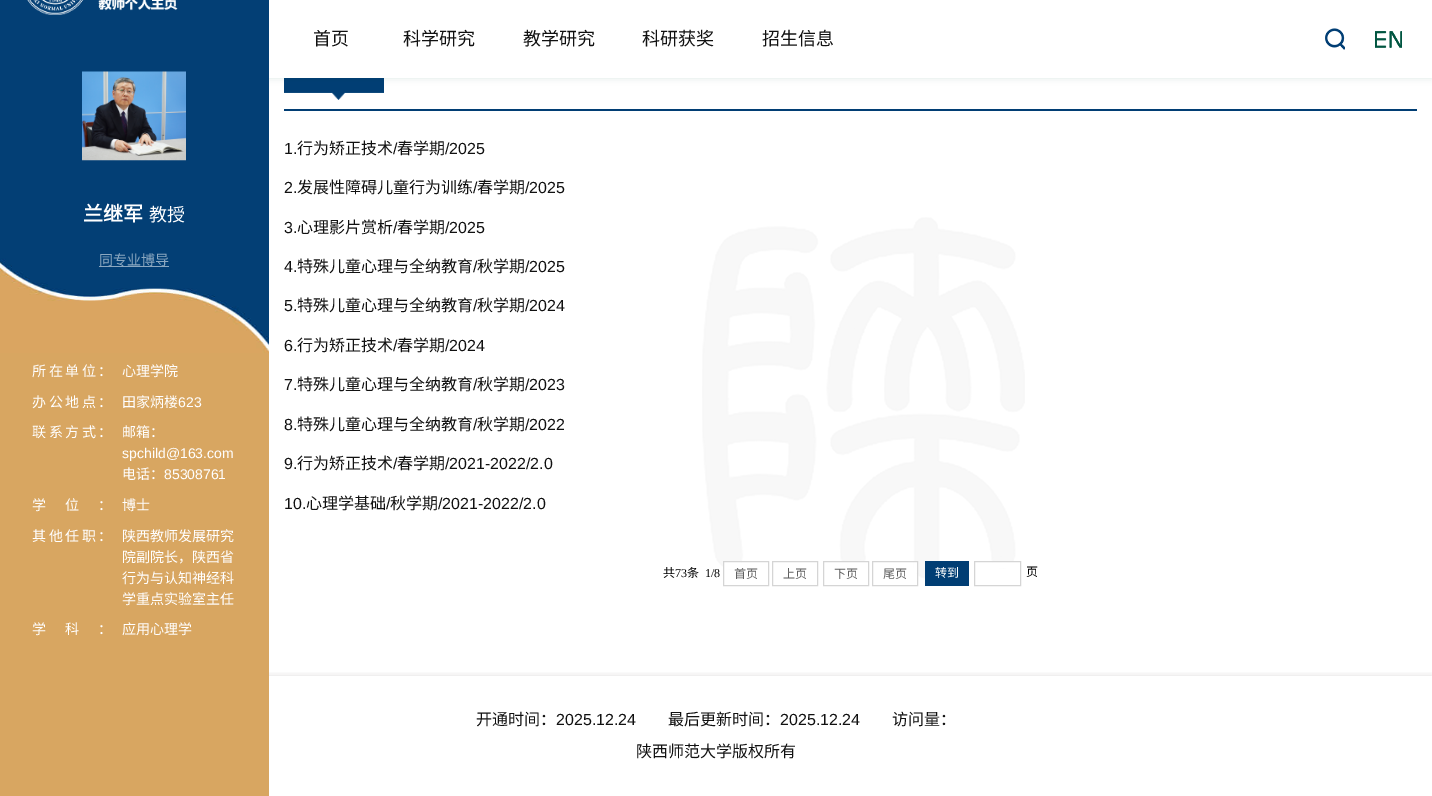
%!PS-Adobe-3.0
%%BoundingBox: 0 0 1432 796
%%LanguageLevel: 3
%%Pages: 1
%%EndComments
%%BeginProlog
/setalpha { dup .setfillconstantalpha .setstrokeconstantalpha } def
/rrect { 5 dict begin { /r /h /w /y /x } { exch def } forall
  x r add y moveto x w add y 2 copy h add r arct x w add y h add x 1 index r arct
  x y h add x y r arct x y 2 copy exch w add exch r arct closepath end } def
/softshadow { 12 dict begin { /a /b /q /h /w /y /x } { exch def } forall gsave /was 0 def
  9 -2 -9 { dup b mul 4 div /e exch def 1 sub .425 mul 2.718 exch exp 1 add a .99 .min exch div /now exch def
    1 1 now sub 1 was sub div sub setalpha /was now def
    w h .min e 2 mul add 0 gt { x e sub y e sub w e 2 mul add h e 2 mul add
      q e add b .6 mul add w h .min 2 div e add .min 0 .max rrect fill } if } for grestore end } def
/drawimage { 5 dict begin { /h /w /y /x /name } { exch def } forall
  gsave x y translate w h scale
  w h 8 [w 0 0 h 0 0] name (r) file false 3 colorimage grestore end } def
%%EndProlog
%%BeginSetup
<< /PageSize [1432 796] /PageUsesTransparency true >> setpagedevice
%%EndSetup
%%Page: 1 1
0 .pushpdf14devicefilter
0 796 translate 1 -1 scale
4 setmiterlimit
1 setgray
0 0 1432 796 rectfill
(images/1.raw) 702 217 323 362 drawimage
(images/7.raw) 284 78 100 22 drawimage
0 0.333 0.251 setrgbcolor
269 0 1163 78 0 3.5 0.14 softshadow
1 setgray
269 0 1163 78 rectfill
(images/2.raw) 1325 28 20 22 drawimage
(images/3.raw) 1375 31 27 17 drawimage
gsave
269 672 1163 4 rectclip
0.106 0.063 0.063 setrgbcolor
0 676 1432 120 0 3.5 0.14 softshadow
grestore
0.847 0.651 0.38 setrgbcolor
0 353 269 443 rectfill
(images/4.raw) 0 0 269 353 drawimage
(images/5.raw) 27 0 151 15 drawimage
(images/6.raw) 82 71 104 90 drawimage
0.545 0.655 0.753 setrgbcolor
99 266 70 1 rectfill
0.004 0.243 0.455 setrgbcolor
284 109 1133 2 rectfill
1 setgray
724 562 17 7 rectfill
0.835 setgray
723.5 561.5 45 24 rectstroke
772.5 561.5 45 24 rectstroke
1 setgray
842 562 23 8 rectfill
0.835 setgray
823.5 561.5 45 24 rectstroke
1 setgray
914 562 3 11 rectfill
0.835 setgray
872.5 561.5 45 24 rectstroke
0.004 0.243 0.455 setrgbcolor
925 561 44 25 rectfill
1 setgray
993 562 20 6 rectfill
0.835 setgray
974.5 561.5 46 24 rectstroke
/NotoSansCJKSC-Regular [18 0 0 -18 0 0] selectfont
0.067 setgray
313 45 moveto (首页) show
403 45 moveto (科学研究) show
523 45 moveto (教学研究) show
642 45 moveto (科研获奖) show
762 45 moveto (招生信息) show
/NotoSansCJKSC-Bold [20 0 0 -20 0 0] selectfont
1 setgray
83 221 moveto (兰继军) show
/NotoSansCJKSC-Regular [18 0 0 -18 0 0] selectfont
149 221 moveto (教授) show
/NotoSansCJKSC-Regular [14 0 0 -14 0 0] selectfont
0.549 0.659 0.753 setrgbcolor
99 265 moveto (同专业博导) show
1 setgray
32 376 moveto 2.5 0 (所在单位：) ashow
122 376 moveto (心理学院) show
32 407 moveto 2.5 0 (办公地点：) ashow
122 407 moveto (田家炳楼) show
/LiberationSans-Regular [14 0 0 -14 0 0] selectfont
178 407 moveto (623) show
/NotoSansCJKSC-Regular [14 0 0 -14 0 0] selectfont
32 437 moveto 2.5 0 (联系方式：) ashow
122 437 moveto (邮箱：) show
/LiberationSans-Regular [14 0 0 -14 0 0] selectfont
122 458 moveto (spchild@163.com) show
/NotoSansCJKSC-Regular [14 0 0 -14 0 0] selectfont
122 479 moveto (电话：) show
/LiberationSans-Regular [14 0 0 -14 0 0] selectfont
164 479 moveto (85308761) show
/NotoSansCJKSC-Regular [14 0 0 -14 0 0] selectfont
32 510 moveto 19 0 (学位：) ashow
122 510 moveto (博士) show
32 541 moveto 2.5 0 (其他任职：) ashow
122 541 moveto (陕西教师发展研究) show
122 562 moveto (院副院长，陕西省) show
122 583 moveto (行为与认知神经科) show
122 604 moveto (学重点实验室主任) show
32 634 moveto 19 0 (学科：) ashow
122 634 moveto (应用心理学) show
/LiberationSans-Regular [16 0 0 -16 0 0] selectfont
0.067 setgray
284 154 moveto (1.) show
/NotoSansCJKSC-Regular [16 0 0 -16 0 0] selectfont
297 154 moveto (行为矫正技术) show
/LiberationSans-Regular [16 0 0 -16 0 0] selectfont
393 154 moveto (/) show
/NotoSansCJKSC-Regular [16 0 0 -16 0 0] selectfont
397 154 moveto (春学期) show
/LiberationSans-Regular [16 0 0 -16 0 0] selectfont
445 154 moveto (/2025) show
284 193 moveto (2.) show
/NotoSansCJKSC-Regular [16 0 0 -16 0 0] selectfont
297 193 moveto (发展性障碍儿童行为训练) show
/LiberationSans-Regular [16 0 0 -16 0 0] selectfont
473 193 moveto (/) show
/NotoSansCJKSC-Regular [16 0 0 -16 0 0] selectfont
477 193 moveto (春学期) show
/LiberationSans-Regular [16 0 0 -16 0 0] selectfont
525 193 moveto (/2025) show
284 233 moveto (3.) show
/NotoSansCJKSC-Regular [16 0 0 -16 0 0] selectfont
297 233 moveto (心理影片赏析) show
/LiberationSans-Regular [16 0 0 -16 0 0] selectfont
393 233 moveto (/) show
/NotoSansCJKSC-Regular [16 0 0 -16 0 0] selectfont
397 233 moveto (春学期) show
/LiberationSans-Regular [16 0 0 -16 0 0] selectfont
445 233 moveto (/2025) show
284 272 moveto (4.) show
/NotoSansCJKSC-Regular [16 0 0 -16 0 0] selectfont
297 272 moveto (特殊儿童心理与全纳教育) show
/LiberationSans-Regular [16 0 0 -16 0 0] selectfont
473 272 moveto (/) show
/NotoSansCJKSC-Regular [16 0 0 -16 0 0] selectfont
477 272 moveto (秋学期) show
/LiberationSans-Regular [16 0 0 -16 0 0] selectfont
525 272 moveto (/2025) show
284 311 moveto (5.) show
/NotoSansCJKSC-Regular [16 0 0 -16 0 0] selectfont
297 311 moveto (特殊儿童心理与全纳教育) show
/LiberationSans-Regular [16 0 0 -16 0 0] selectfont
473 311 moveto (/) show
/NotoSansCJKSC-Regular [16 0 0 -16 0 0] selectfont
477 311 moveto (秋学期) show
/LiberationSans-Regular [16 0 0 -16 0 0] selectfont
525 311 moveto (/2024) show
284 351 moveto (6.) show
/NotoSansCJKSC-Regular [16 0 0 -16 0 0] selectfont
297 351 moveto (行为矫正技术) show
/LiberationSans-Regular [16 0 0 -16 0 0] selectfont
393 351 moveto (/) show
/NotoSansCJKSC-Regular [16 0 0 -16 0 0] selectfont
397 351 moveto (春学期) show
/LiberationSans-Regular [16 0 0 -16 0 0] selectfont
445 351 moveto (/2024) show
284 390 moveto (7.) show
/NotoSansCJKSC-Regular [16 0 0 -16 0 0] selectfont
297 390 moveto (特殊儿童心理与全纳教育) show
/LiberationSans-Regular [16 0 0 -16 0 0] selectfont
473 390 moveto (/) show
/NotoSansCJKSC-Regular [16 0 0 -16 0 0] selectfont
477 390 moveto (秋学期) show
/LiberationSans-Regular [16 0 0 -16 0 0] selectfont
525 390 moveto (/2023) show
284 430 moveto (8.) show
/NotoSansCJKSC-Regular [16 0 0 -16 0 0] selectfont
297 430 moveto (特殊儿童心理与全纳教育) show
/LiberationSans-Regular [16 0 0 -16 0 0] selectfont
473 430 moveto (/) show
/NotoSansCJKSC-Regular [16 0 0 -16 0 0] selectfont
477 430 moveto (秋学期) show
/LiberationSans-Regular [16 0 0 -16 0 0] selectfont
525 430 moveto (/2022) show
284 469 moveto (9.) show
/NotoSansCJKSC-Regular [16 0 0 -16 0 0] selectfont
297 469 moveto (行为矫正技术) show
/LiberationSans-Regular [16 0 0 -16 0 0] selectfont
393 469 moveto (/) show
/NotoSansCJKSC-Regular [16 0 0 -16 0 0] selectfont
397 469 moveto (春学期) show
/LiberationSans-Regular [16 0 0 -16 0 0] selectfont
445 469 moveto (/2021-2022/2.0) show
284 509 moveto (10.) show
/NotoSansCJKSC-Regular [16 0 0 -16 0 0] selectfont
306 509 moveto (心理学基础) show
/LiberationSans-Regular [16 0 0 -16 0 0] selectfont
386 509 moveto (/) show
/NotoSansCJKSC-Regular [16 0 0 -16 0 0] selectfont
390 509 moveto (秋学期) show
/LiberationSans-Regular [16 0 0 -16 0 0] selectfont
438 509 moveto (/2021-2022/2.0) show
/NotoSansCJKSC-Regular [12 0 0 -12 0 0] selectfont
0 setgray
663 577 moveto (共) show
/LiberationSerif-Regular [12 0 0 -12 0 0] selectfont
675 577 moveto (73) show
/NotoSansCJKSC-Regular [12 0 0 -12 0 0] selectfont
687 577 moveto (条) show
/LiberationSerif-Regular [12 0 0 -12 0 0] selectfont
705 577 moveto (1/8) show
/NotoSansCJKSC-Regular [12 0 0 -12 0 0] selectfont
0.376 setgray
734 578 moveto (首页) show
783 578 moveto (上页) show
834 578 moveto (下页) show
883 578 moveto (尾页) show
1 setgray
935 577 moveto (转到) show
0 setgray
1026 576 moveto (页) show
/NotoSansCJKSC-Regular [16 0 0 -16 0 0] selectfont
0.067 setgray
476 725 moveto (开通时间：) show
/LiberationSans-Regular [16 0 0 -16 0 0] selectfont
556 725 moveto (2025.12.24) show
/NotoSansCJKSC-Regular [16 0 0 -16 0 0] selectfont
668 725 moveto (最后更新时间：) show
/LiberationSans-Regular [16 0 0 -16 0 0] selectfont
780 725 moveto (2025.12.24) show
/NotoSansCJKSC-Regular [16 0 0 -16 0 0] selectfont
892 725 moveto (访问量：) show
636 757 moveto (陕西师范大学版权所有) show
.poppdf14devicefilter showpage
%%EOF
